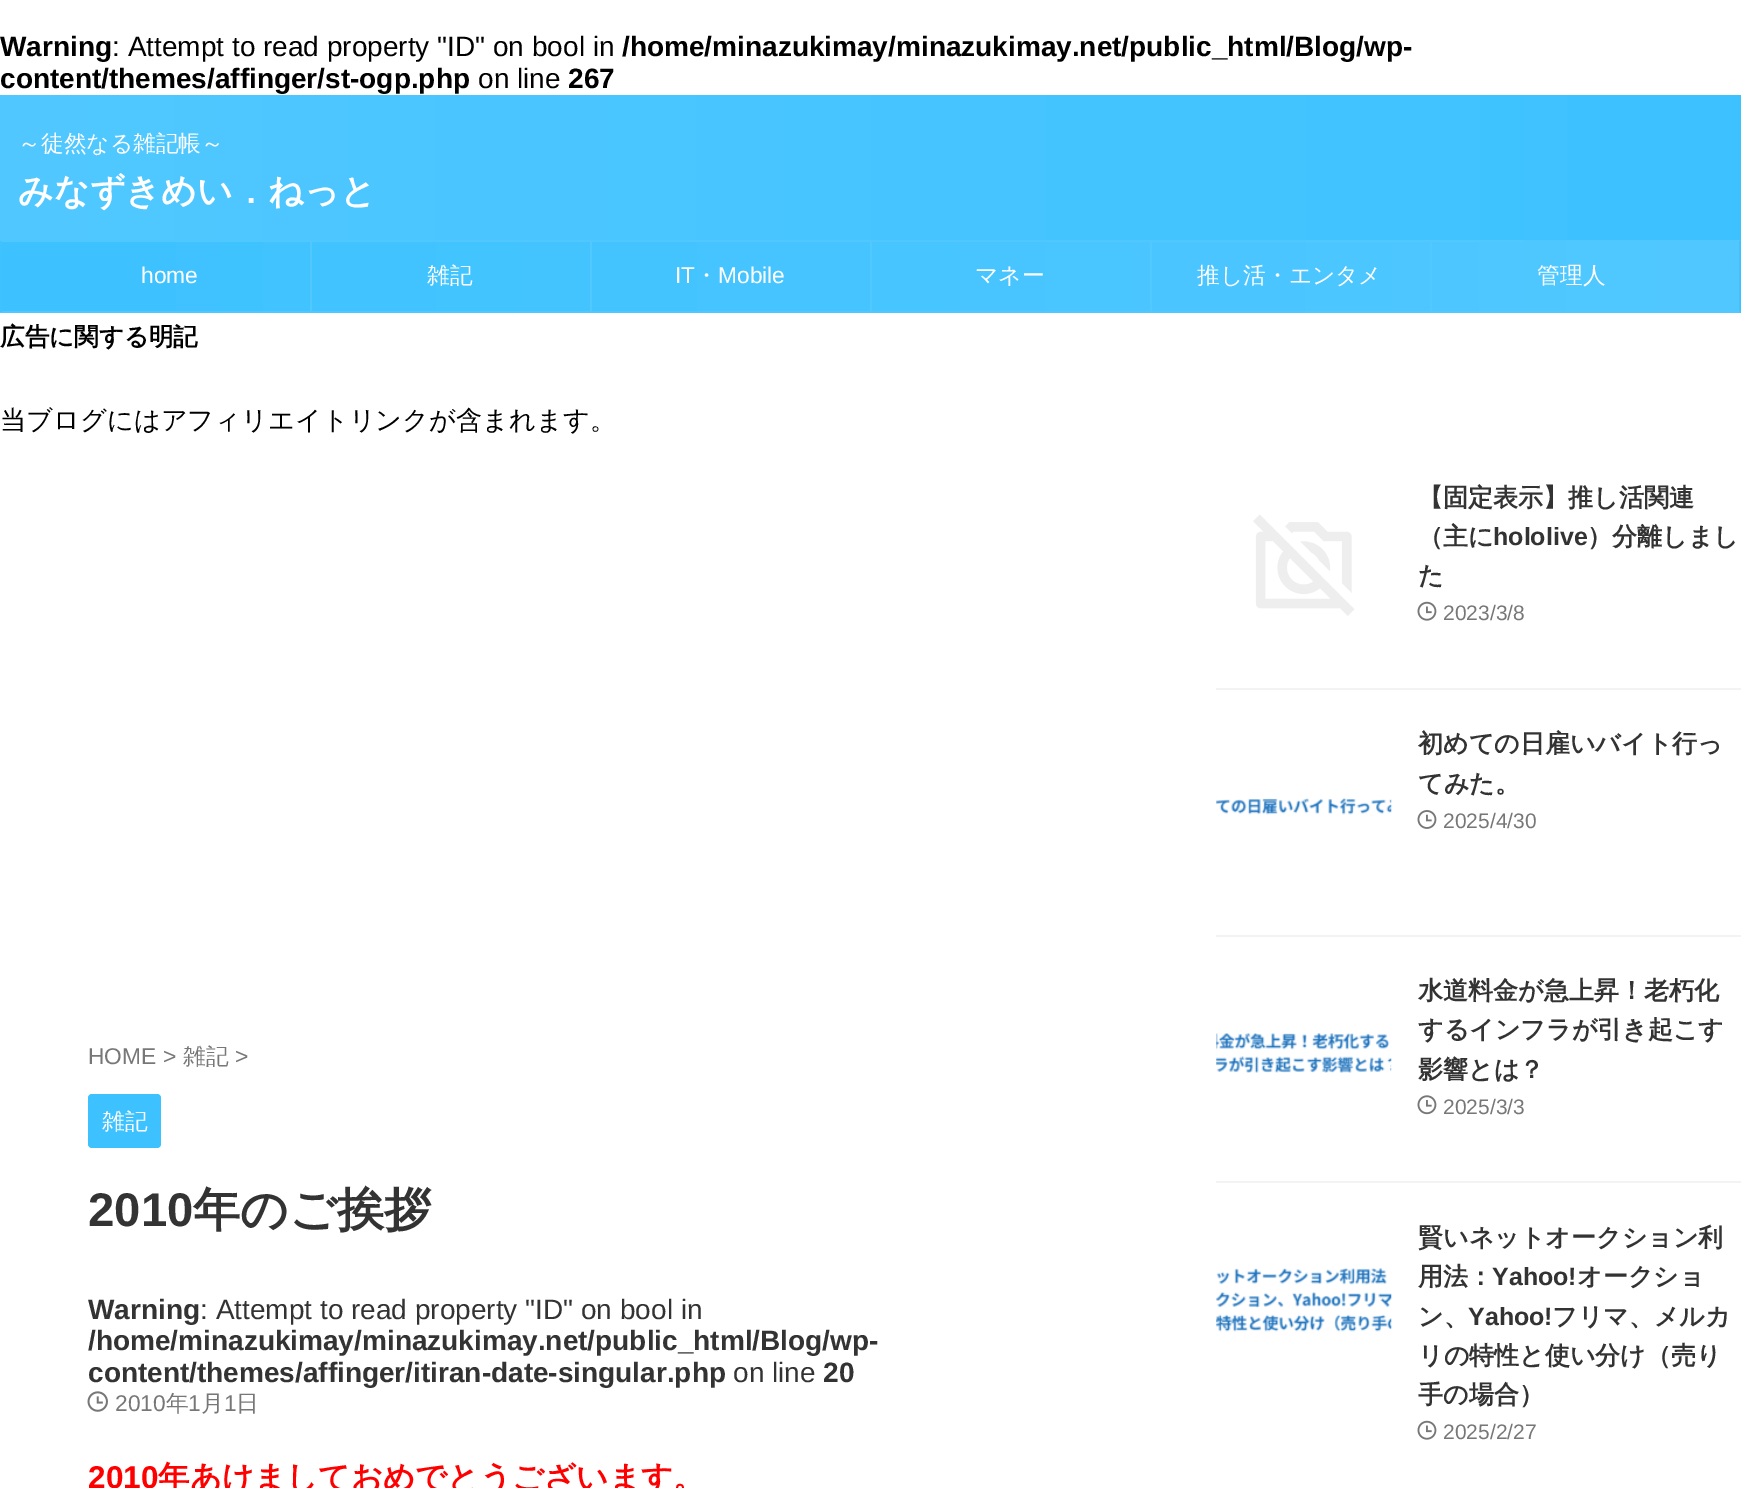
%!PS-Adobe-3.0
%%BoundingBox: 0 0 1741 1488
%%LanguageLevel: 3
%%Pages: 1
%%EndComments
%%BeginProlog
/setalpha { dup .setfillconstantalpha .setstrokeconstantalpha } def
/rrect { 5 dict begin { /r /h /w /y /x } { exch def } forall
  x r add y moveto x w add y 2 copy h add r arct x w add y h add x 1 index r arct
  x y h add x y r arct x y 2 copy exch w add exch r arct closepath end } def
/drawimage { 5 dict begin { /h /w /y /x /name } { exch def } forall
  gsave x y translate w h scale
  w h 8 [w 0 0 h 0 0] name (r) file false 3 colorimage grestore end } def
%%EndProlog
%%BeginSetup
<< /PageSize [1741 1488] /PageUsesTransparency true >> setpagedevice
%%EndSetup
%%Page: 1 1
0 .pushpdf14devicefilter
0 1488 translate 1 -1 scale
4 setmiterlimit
1 setgray
0 0 1741 1488 rectfill
gsave newpath 0 95 moveto 1741 95 lineto 1741 240 lineto 0 240 lineto closepath clip newpath
<< /ShadingType 2 /ColorSpace /DeviceRGB /Coords [1741 167 0 167] /Extend [true true] /Function << /FunctionType 2 /Domain [0 1] /C0 [0.239 0.761 1] /C1 [0.318 0.784 1] /N 1 >> >> shfill grestore
gsave newpath 2 240 moveto 2 313 lineto 1 313 0 312 0 311 curveto 0 242 lineto 0 241 1 240 2 240 curveto closepath clip newpath
<< /ShadingType 2 /ColorSpace /DeviceRGB /Coords [1.8 277 -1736 276] /Extend [true true] /Function << /FunctionType 2 /Domain [0 1] /C0 [0.318 0.784 1] /C1 [0.239 0.761 1] /N 1 >> >> shfill grestore
gsave newpath 2 240 moveto 1740 240 lineto 1740 313 lineto 2 313 lineto closepath clip newpath
<< /ShadingType 2 /ColorSpace /DeviceRGB /Coords [1740 277 1.8 276] /Extend [true true] /Function << /FunctionType 2 /Domain [0 1] /C0 [0.318 0.784 1] /C1 [0.239 0.761 1] /N 1 >> >> shfill grestore
gsave
0 240 1741 73 2 rrect clip newpath
gsave newpath 1740 240 moveto 1741 240 lineto 1741 313 lineto 1740 313 lineto closepath clip newpath
<< /ShadingType 2 /ColorSpace /DeviceRGB /Coords [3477 277 1740 276] /Extend [true true] /Function << /FunctionType 2 /Domain [0 1] /C0 [0.318 0.784 1] /C1 [0.239 0.761 1] /N 1 >> >> shfill grestore
grestore
0.9 setalpha
0.318 0.784 1 setrgbcolor
1 240 1522 2 rectfill
0.239 0.761 1 setrgbcolor
1739 241 2 71 rectfill
0.318 0.784 1 setrgbcolor
1 311 1739 2 rectfill
0.239 0.761 1 setrgbcolor
0 241 2 71 rectfill
1 setalpha
0.318 0.784 1 setrgbcolor
310 242 2 70 rectfill
590 242 2 70 rectfill
870 242 2 70 rectfill
1150 242 2 70 rectfill
1430 242 2 70 rectfill
0.239 0.761 1 setrgbcolor
88 1094 73 54 4 rrect fill
(images/1.raw) 87 1391 21 21 drawimage
0.953 setgray
1216 688 525 2 rectfill
(images/2.raw) 1253 514 102 102 drawimage
(images/3.raw) 1417 601 20 20 drawimage
1216 935 525 2 rectfill
(images/4.raw) 1216 798 176 17 drawimage
(images/5.raw) 1417 810 20 19 drawimage
1216 1181 525 2 rectfill
(images/6.raw) 1216 1033 176 40 drawimage
(images/7.raw) 1417 1095 20 20 drawimage
(images/8.raw) 1216 1268 176 64 drawimage
(images/3.raw) 1417 1420 20 20 drawimage
/LiberationSans-Bold [28 0 0 -28 0 0] selectfont
0 setgray
0 56 moveto (Warning) show
/LiberationSans-Regular [28 0 0 -28 0 0] selectfont
112 56 moveto (: Attempt to read property "ID" on bool in) show
/LiberationSans-Bold [28 0 0 -28 0 0] selectfont
622 56 moveto (/home/minazukimay/minazukimay.net/public_html/Blog/wp-) show
0 88 moveto (content/themes/affinger/st-ogp.php) show
/LiberationSans-Regular [28 0 0 -28 0 0] selectfont
478 88 moveto (on line) show
/LiberationSans-Bold [28 0 0 -28 0 0] selectfont
568 88 moveto (267) show
/WenQuanYiZenHei-Medium [22.75 0 0 -22.75 0 0] selectfont
1 setgray
18 151 moveto (～徒然なる雑記帳～) show
/WenQuanYiZenHei-Bold [35 0 0 -35 0 0] selectfont
18 203 moveto (みなずきめい．ねっと) show
/LiberationSans-Regular [22.75 0 0 -22.75 0 0] selectfont
141 283 moveto (home) show
/WenQuanYiZenHei-Medium [22.75 0 0 -22.75 0 0] selectfont
427 283 moveto (雑記) show
/LiberationSans-Regular [22.75 0 0 -22.75 0 0] selectfont
675 283 moveto (IT) show
/WenQuanYiZenHei-Medium [22.75 0 0 -22.75 0 0] selectfont
695 283 moveto (・) show
/LiberationSans-Regular [22.75 0 0 -22.75 0 0] selectfont
718 283 moveto (Mobile) show
/WenQuanYiZenHei-Medium [22.75 0 0 -22.75 0 0] selectfont
975 283 moveto (マネー) show
1197 283 moveto (推し活・エンタメ) show
1537 283 moveto (管理人) show
/WenQuanYiZenHei-Bold [24.5 0 0 -24.5 0 0] selectfont
0 setgray
0 345 moveto (広告に関する明記) show
/WenQuanYiZenHei-Medium [26.25 0 0 -26.25 0 0] selectfont
0 429 moveto (当ブログにはアフィリエイトリンクが含まれます。) show
/LiberationSans-Regular [22.75 0 0 -22.75 0 0] selectfont
0.467 setgray
88 1064 moveto (HOME >) show
/WenQuanYiZenHei-Medium [22.75 0 0 -22.75 0 0] selectfont
183 1064 moveto (雑記) show
/LiberationSans-Regular [22.75 0 0 -22.75 0 0] selectfont
235 1064 moveto (>) show
/WenQuanYiZenHei-Medium [22.75 0 0 -22.75 0 0] selectfont
1 setgray
102 1129 moveto (雑記) show
/LiberationSans-Bold [47.25 0 0 -47.25 0 0] selectfont
0.2 setgray
88 1226 moveto (2010) show
/WenQuanYiZenHei-Bold [47.25 0 0 -47.25 0 0] selectfont
193 1226 moveto (年のご挨拶) show
/LiberationSans-Bold [28 0 0 -28 0 0] selectfont
88 1319 moveto (Warning) show
/LiberationSans-Regular [28 0 0 -28 0 0] selectfont
200 1319 moveto (: Attempt to read property "ID" on bool in) show
/LiberationSans-Bold [28 0 0 -28 0 0] selectfont
88 1350 moveto (/home/minazukimay/minazukimay.net/public_html/Blog/wp-) show
88 1382 moveto (content/themes/affinger/itiran-date-singular.php) show
/LiberationSans-Regular [28 0 0 -28 0 0] selectfont
733 1382 moveto (on line) show
/LiberationSans-Bold [28 0 0 -28 0 0] selectfont
823 1382 moveto (20) show
/LiberationSans-Regular [22.75 0 0 -22.75 0 0] selectfont
0.467 setgray
115 1411 moveto (2010) show
/WenQuanYiZenHei-Medium [22.75 0 0 -22.75 0 0] selectfont
166 1411 moveto (年) show
/LiberationSans-Regular [22.75 0 0 -22.75 0 0] selectfont
188 1411 moveto (1) show
/WenQuanYiZenHei-Medium [22.75 0 0 -22.75 0 0] selectfont
201 1411 moveto (月) show
/LiberationSans-Regular [22.75 0 0 -22.75 0 0] selectfont
224 1411 moveto (1) show
/WenQuanYiZenHei-Medium [22.75 0 0 -22.75 0 0] selectfont
236 1411 moveto (日) show
/LiberationSans-Bold [31.5 0 0 -31.5 0 0] selectfont
1 0 0 setrgbcolor
88 1488 moveto (2010) show
/WenQuanYiZenHei-Bold [31.5 0 0 -31.5 0 0] selectfont
158 1488 moveto (年あけましておめでとうございます。) show
/WenQuanYiZenHei-Bold [25 0 0 -25 0 0] selectfont
0.2 setgray
1418 506 moveto (【固定表示】推し活関連) show
1418 545 moveto (（主に) show
/LiberationSans-Bold [25 0 0 -25 0 0] selectfont
1493 545 moveto (hololive) show
/WenQuanYiZenHei-Bold [25 0 0 -25 0 0] selectfont
1587 545 moveto (）分離しまし) show
1418 584 moveto (た) show
/LiberationSans-Regular [21 0 0 -21 0 0] selectfont
0.467 setgray
1443 620 moveto (2023/3/8) show
/WenQuanYiZenHei-Bold [25 0 0 -25 0 0] selectfont
0.2 setgray
1418 752 moveto (初めての日雇いバイト行っ) show
1418 792 moveto (てみた。) show
/LiberationSans-Regular [21 0 0 -21 0 0] selectfont
0.467 setgray
1443 828 moveto (2025/4/30) show
/WenQuanYiZenHei-Bold [25 0 0 -25 0 0] selectfont
0.2 setgray
1418 999 moveto (水道料金が急上昇！老朽化) show
1418 1038 moveto (するインフラが引き起こす) show
1418 1078 moveto (影響とは？) show
/LiberationSans-Regular [21 0 0 -21 0 0] selectfont
0.467 setgray
1443 1114 moveto (2025/3/3) show
/WenQuanYiZenHei-Bold [25 0 0 -25 0 0] selectfont
0.2 setgray
1418 1246 moveto (賢いネットオークション利) show
1418 1285 moveto (用法：) show
/LiberationSans-Bold [25 0 0 -25 0 0] selectfont
1492 1285 moveto (Yahoo!) show
/WenQuanYiZenHei-Bold [25 0 0 -25 0 0] selectfont
1577 1285 moveto (オークショ) show
1418 1325 moveto (ン、) show
/LiberationSans-Bold [25 0 0 -25 0 0] selectfont
1468 1325 moveto (Yahoo!) show
/WenQuanYiZenHei-Bold [25 0 0 -25 0 0] selectfont
1552 1325 moveto (フリマ、メルカ) show
1418 1364 moveto (リの特性と使い分け（売り) show
1418 1403 moveto (手の場合）) show
/LiberationSans-Regular [21 0 0 -21 0 0] selectfont
0.467 setgray
1443 1439 moveto (2025/2/27) show
.poppdf14devicefilter showpage
%%EOF
